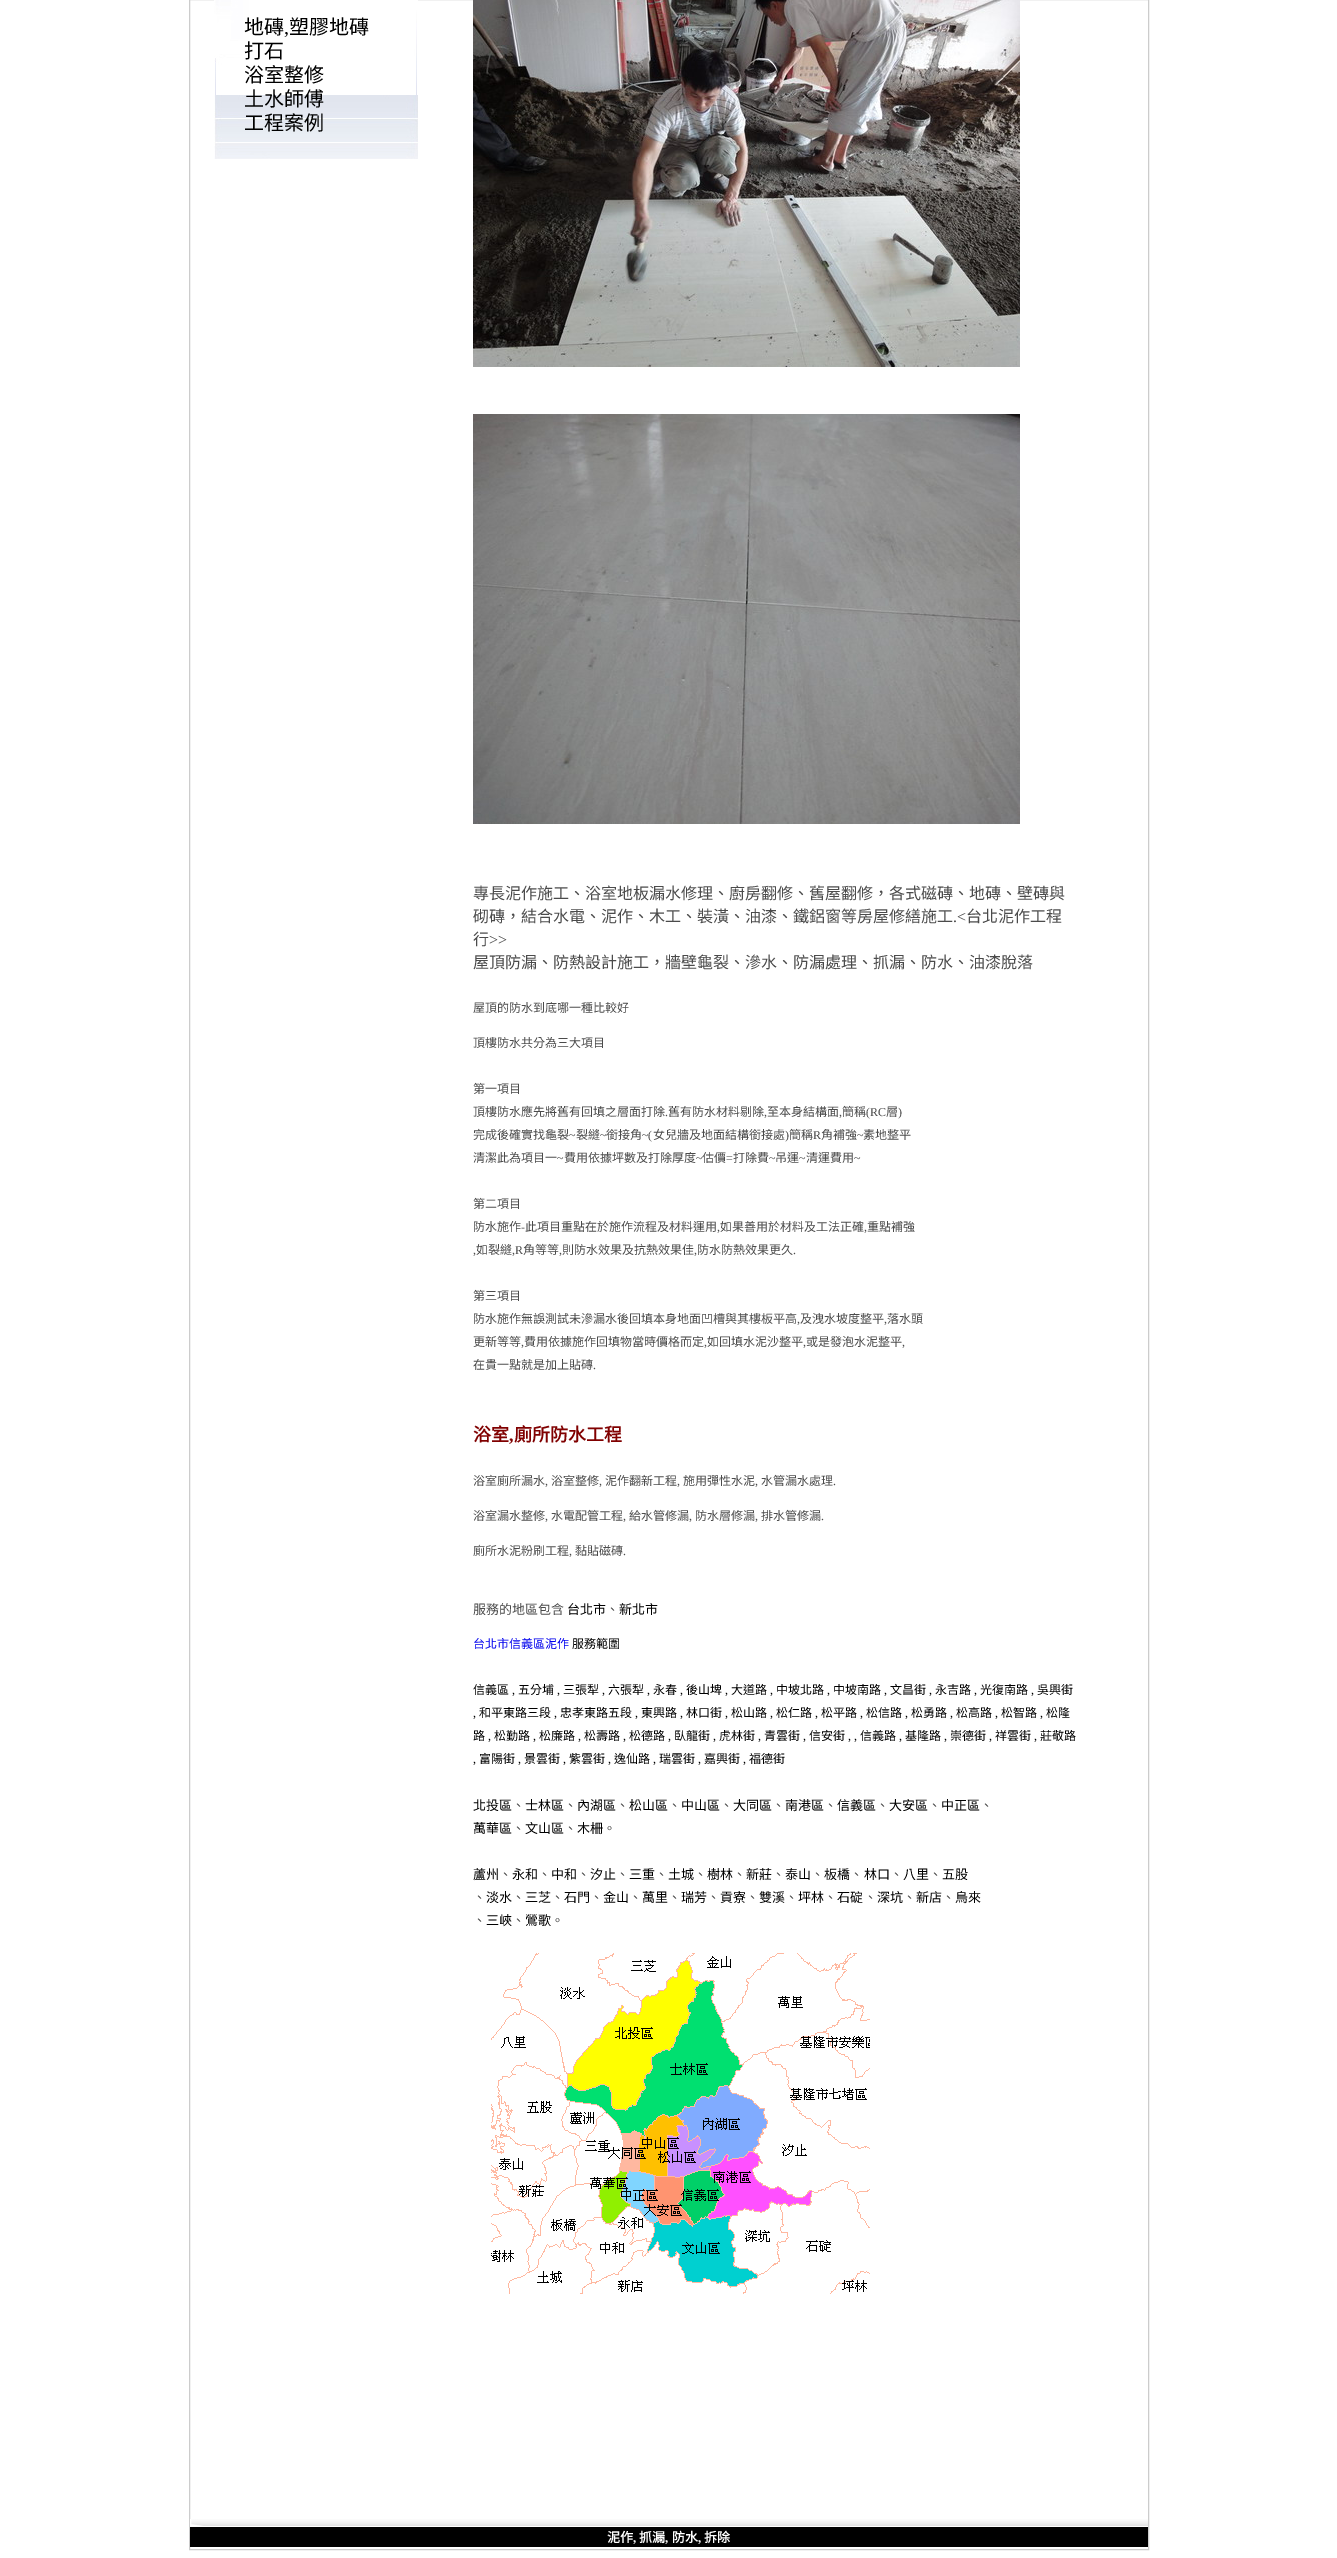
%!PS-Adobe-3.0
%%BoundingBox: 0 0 1337 2558
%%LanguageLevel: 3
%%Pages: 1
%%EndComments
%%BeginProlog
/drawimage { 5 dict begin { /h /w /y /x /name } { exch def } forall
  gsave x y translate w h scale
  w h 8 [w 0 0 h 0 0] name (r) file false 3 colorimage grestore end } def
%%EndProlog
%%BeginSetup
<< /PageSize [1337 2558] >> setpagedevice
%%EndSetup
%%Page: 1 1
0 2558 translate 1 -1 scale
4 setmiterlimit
1 setgray
0 0 1337 2558 rectfill
0.8 setgray
189.5 -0.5 959 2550 rectstroke
(images/1.raw) 214 0 204 159 drawimage
(images/2.raw) 473 0 547 367 drawimage
(images/3.raw) 473 414 547 410 drawimage
(images/4.raw) 491 1953 379 341 drawimage
(images/5.raw) 190 2519 958 28 drawimage
/NotoSansCJKTC-Regular [20 0 0 -20 0 0] selectfont
0 setgray
244 34 moveto (地磚) show
/LiberationSerif-Regular [20 0 0 -20 0 0] selectfont
284 34 moveto (,) show
/NotoSansCJKTC-Regular [20 0 0 -20 0 0] selectfont
289 34 moveto (塑膠地磚) show
244 58 moveto (打石) show
244 82 moveto (浴室整修) show
244 106 moveto (土水師傅) show
244 130 moveto (工程案例) show
/NotoSansCJKTC-Regular [16 0 0 -16 0 0] selectfont
0.294 setgray
473 899 moveto (專長泥作施工、浴室地板漏水修理、廚房翻修、舊屋翻修，各式磁磚、地磚、壁磚與) show
473 922 moveto (砌磚，結合水電、泥作、木工、裝潢、油漆、鐵鋁窗等房屋修繕施工) show
/LiberationSerif-Regular [16 0 0 -16 0 0] selectfont
953 922 moveto (.<) show
/NotoSansCJKTC-Regular [16 0 0 -16 0 0] selectfont
966 922 moveto (台北泥作工程) show
473 945 moveto (行) show
/LiberationSerif-Regular [16 0 0 -16 0 0] selectfont
489 945 moveto (>>) show
/NotoSansCJKTC-Regular [16 0 0 -16 0 0] selectfont
473 968 moveto (屋頂防漏、防熱設計施工，牆壁龜裂、滲水、防漏處理、抓漏、防水、油漆脫落) show
/NotoSansCJKTC-Regular [12 0 0 -12 0 0] selectfont
473 1012 moveto (屋頂的防水到底哪一種比較好) show
473 1047 moveto (頂樓防水共分為三大項目) show
473 1093 moveto (第一項目) show
473 1116 moveto (頂樓防水應先將舊有回填之層面打除) show
/LiberationSerif-Regular [12 0 0 -12 0 0] selectfont
665 1116 moveto (.) show
/NotoSansCJKTC-Regular [12 0 0 -12 0 0] selectfont
668 1116 moveto (舊有防水材料剔除) show
/LiberationSerif-Regular [12 0 0 -12 0 0] selectfont
764 1116 moveto (,) show
/NotoSansCJKTC-Regular [12 0 0 -12 0 0] selectfont
767 1116 moveto (至本身結構面) show
/LiberationSerif-Regular [12 0 0 -12 0 0] selectfont
839 1116 moveto (,) show
/NotoSansCJKTC-Regular [12 0 0 -12 0 0] selectfont
842 1116 moveto (簡稱) show
/LiberationSerif-Regular [12 0 0 -12 0 0] selectfont
866 1116 moveto (\(RC) show
/NotoSansCJKTC-Regular [12 0 0 -12 0 0] selectfont
886 1116 moveto (層) show
/LiberationSerif-Regular [12 0 0 -12 0 0] selectfont
898 1116 moveto (\)) show
/NotoSansCJKTC-Regular [12 0 0 -12 0 0] selectfont
473 1139 moveto (完成後確實找龜裂) show
/LiberationSerif-Regular [12 0 0 -12 0 0] selectfont
569 1139 moveto (~) show
/NotoSansCJKTC-Regular [12 0 0 -12 0 0] selectfont
576 1139 moveto (裂縫) show
/LiberationSerif-Regular [12 0 0 -12 0 0] selectfont
600 1139 moveto (~) show
/NotoSansCJKTC-Regular [12 0 0 -12 0 0] selectfont
606 1139 moveto (銜接角) show
/LiberationSerif-Regular [12 0 0 -12 0 0] selectfont
642 1139 moveto (~\() show
/NotoSansCJKTC-Regular [12 0 0 -12 0 0] selectfont
653 1139 moveto (女兒牆及地面結構銜接處) show
/LiberationSerif-Regular [12 0 0 -12 0 0] selectfont
785 1139 moveto (\)) show
/NotoSansCJKTC-Regular [12 0 0 -12 0 0] selectfont
789 1139 moveto (簡稱) show
/LiberationSerif-Regular [12 0 0 -12 0 0] selectfont
813 1139 moveto (R) show
/NotoSansCJKTC-Regular [12 0 0 -12 0 0] selectfont
821 1139 moveto (角補強) show
/LiberationSerif-Regular [12 0 0 -12 0 0] selectfont
857 1139 moveto (~) show
/NotoSansCJKTC-Regular [12 0 0 -12 0 0] selectfont
863 1139 moveto (素地整平) show
473 1162 moveto (清潔此為項目一) show
/LiberationSerif-Regular [12 0 0 -12 0 0] selectfont
557 1162 moveto (~) show
/NotoSansCJKTC-Regular [12 0 0 -12 0 0] selectfont
564 1162 moveto (費用依據坪數及打除厚度) show
/LiberationSerif-Regular [12 0 0 -12 0 0] selectfont
696 1162 moveto (~) show
/NotoSansCJKTC-Regular [12 0 0 -12 0 0] selectfont
702 1162 moveto (估價) show
/LiberationSerif-Regular [12 0 0 -12 0 0] selectfont
726 1162 moveto (=) show
/NotoSansCJKTC-Regular [12 0 0 -12 0 0] selectfont
733 1162 moveto (打除費) show
/LiberationSerif-Regular [12 0 0 -12 0 0] selectfont
769 1162 moveto (~) show
/NotoSansCJKTC-Regular [12 0 0 -12 0 0] selectfont
775 1162 moveto (吊運) show
/LiberationSerif-Regular [12 0 0 -12 0 0] selectfont
799 1162 moveto (~) show
/NotoSansCJKTC-Regular [12 0 0 -12 0 0] selectfont
806 1162 moveto (清運費用) show
/LiberationSerif-Regular [12 0 0 -12 0 0] selectfont
854 1162 moveto (~) show
/NotoSansCJKTC-Regular [12 0 0 -12 0 0] selectfont
473 1208 moveto (第二項目) show
473 1231 moveto (防水施作) show
/LiberationSerif-Regular [12 0 0 -12 0 0] selectfont
521 1231 moveto (-) show
/NotoSansCJKTC-Regular [12 0 0 -12 0 0] selectfont
525 1231 moveto (此項目重點在於施作流程及材料運用) show
720 1231 moveto (如果善用於材料及工法正確) show
867 1231 moveto (重點補強) show
/LiberationSerif-Regular [12 0 0 -12 0 0] selectfont
717 1231 moveto (,) show
864 1231 moveto (,) show
473 1254 moveto (,) show
/NotoSansCJKTC-Regular [12 0 0 -12 0 0] selectfont
476 1254 moveto (如裂縫) show
/LiberationSerif-Regular [12 0 0 -12 0 0] selectfont
512 1254 moveto (,R) show
/NotoSansCJKTC-Regular [12 0 0 -12 0 0] selectfont
523 1254 moveto (角等等) show
/LiberationSerif-Regular [12 0 0 -12 0 0] selectfont
559 1254 moveto (,) show
/NotoSansCJKTC-Regular [12 0 0 -12 0 0] selectfont
562 1254 moveto (則防水效果及抗熱效果佳) show
/LiberationSerif-Regular [12 0 0 -12 0 0] selectfont
694 1254 moveto (,) show
/NotoSansCJKTC-Regular [12 0 0 -12 0 0] selectfont
697 1254 moveto (防水防熱效果更久) show
/LiberationSerif-Regular [12 0 0 -12 0 0] selectfont
793 1254 moveto (.) show
/NotoSansCJKTC-Regular [12 0 0 -12 0 0] selectfont
473 1300 moveto (第三項目) show
473 1323 moveto (防水施作無誤測試未滲漏水後回填本身地面凹槽與其樓板平高) show
/LiberationSerif-Regular [12 0 0 -12 0 0] selectfont
797 1323 moveto (,) show
/NotoSansCJKTC-Regular [12 0 0 -12 0 0] selectfont
800 1323 moveto (及洩水坡度整平) show
/LiberationSerif-Regular [12 0 0 -12 0 0] selectfont
884 1323 moveto (,) show
/NotoSansCJKTC-Regular [12 0 0 -12 0 0] selectfont
887 1323 moveto (落水頭) show
473 1346 moveto (更新等等) show
/LiberationSerif-Regular [12 0 0 -12 0 0] selectfont
521 1346 moveto (,) show
/NotoSansCJKTC-Regular [12 0 0 -12 0 0] selectfont
524 1346 moveto (費用依據施作回填物當時價格而定) show
/LiberationSerif-Regular [12 0 0 -12 0 0] selectfont
704 1346 moveto (,) show
/NotoSansCJKTC-Regular [12 0 0 -12 0 0] selectfont
707 1346 moveto (如回填水泥沙整平) show
/LiberationSerif-Regular [12 0 0 -12 0 0] selectfont
803 1346 moveto (,) show
/NotoSansCJKTC-Regular [12 0 0 -12 0 0] selectfont
806 1346 moveto (或是發泡水泥整平) show
/LiberationSerif-Regular [12 0 0 -12 0 0] selectfont
902 1346 moveto (,) show
/NotoSansCJKTC-Regular [12 0 0 -12 0 0] selectfont
473 1369 moveto (在貴一點就是加上貼磚) show
/LiberationSerif-Regular [12 0 0 -12 0 0] selectfont
593 1369 moveto (.) show
/NotoSansCJKTC-Bold [18 0 0 -18 0 0] selectfont
0.502 0 0 setrgbcolor
473 1441 moveto (浴室) show
/LiberationSerif-Bold [18 0 0 -18 0 0] selectfont
509 1441 moveto (,) show
/NotoSansCJKTC-Bold [18 0 0 -18 0 0] selectfont
514 1441 moveto (廁所防水工程) show
/NotoSansCJKTC-Regular [12 0 0 -12 0 0] selectfont
0.294 setgray
473 1485 moveto (浴室廁所漏水) show
/LiberationSerif-Regular [12 0 0 -12 0 0] selectfont
545 1485 moveto (,) show
/NotoSansCJKTC-Regular [12 0 0 -12 0 0] selectfont
551 1485 moveto (浴室整修) show
/LiberationSerif-Regular [12 0 0 -12 0 0] selectfont
599 1485 moveto (,) show
/NotoSansCJKTC-Regular [12 0 0 -12 0 0] selectfont
605 1485 moveto (泥作翻新工程) show
/LiberationSerif-Regular [12 0 0 -12 0 0] selectfont
677 1485 moveto (,) show
/NotoSansCJKTC-Regular [12 0 0 -12 0 0] selectfont
683 1485 moveto (施用彈性水泥) show
/LiberationSerif-Regular [12 0 0 -12 0 0] selectfont
755 1485 moveto (,) show
/NotoSansCJKTC-Regular [12 0 0 -12 0 0] selectfont
761 1485 moveto (水管漏水處理) show
/LiberationSerif-Regular [12 0 0 -12 0 0] selectfont
833 1485 moveto (.) show
/NotoSansCJKTC-Regular [12 0 0 -12 0 0] selectfont
473 1520 moveto (浴室漏水整修) show
/LiberationSerif-Regular [12 0 0 -12 0 0] selectfont
545 1520 moveto (,) show
/NotoSansCJKTC-Regular [12 0 0 -12 0 0] selectfont
551 1520 moveto (水電配管工程) show
/LiberationSerif-Regular [12 0 0 -12 0 0] selectfont
623 1520 moveto (,) show
/NotoSansCJKTC-Regular [12 0 0 -12 0 0] selectfont
629 1520 moveto (給水管修漏) show
/LiberationSerif-Regular [12 0 0 -12 0 0] selectfont
689 1520 moveto (,) show
/NotoSansCJKTC-Regular [12 0 0 -12 0 0] selectfont
695 1520 moveto (防水層修漏) show
/LiberationSerif-Regular [12 0 0 -12 0 0] selectfont
755 1520 moveto (,) show
/NotoSansCJKTC-Regular [12 0 0 -12 0 0] selectfont
761 1520 moveto (排水管修漏) show
/LiberationSerif-Regular [12 0 0 -12 0 0] selectfont
821 1520 moveto (.) show
/NotoSansCJKTC-Regular [12 0 0 -12 0 0] selectfont
473 1555 moveto (廁所水泥粉刷工程) show
/LiberationSerif-Regular [12 0 0 -12 0 0] selectfont
569 1555 moveto (,) show
/NotoSansCJKTC-Regular [12 0 0 -12 0 0] selectfont
575 1555 moveto (黏貼磁磚) show
/LiberationSerif-Regular [12 0 0 -12 0 0] selectfont
623 1555 moveto (.) show
/NotoSansCJKTC-Regular [13 0 0 -13 0 0] selectfont
473 1614 moveto (服務的地區包含) show
0 setgray
567 1614 moveto (台北市) show
0.294 setgray
606 1614 moveto (、) show
0 setgray
619 1614 moveto (新北市) show
/NotoSansCJKTC-Regular [12 0 0 -12 0 0] selectfont
0 0 0.933 setrgbcolor
473 1648 moveto (台北市信義區泥作) show
0 setgray
572 1648 moveto (服務範圍) show
473 1694 moveto (信義區) show
/LiberationSerif-Regular [12 0 0 -12 0 0] selectfont
512 1694 moveto (,) show
/NotoSansCJKTC-Regular [12 0 0 -12 0 0] selectfont
518 1694 moveto (五分埔) show
/LiberationSerif-Regular [12 0 0 -12 0 0] selectfont
557 1694 moveto (,) show
/NotoSansCJKTC-Regular [12 0 0 -12 0 0] selectfont
563 1694 moveto (三張犁) show
/LiberationSerif-Regular [12 0 0 -12 0 0] selectfont
602 1694 moveto (,) show
/NotoSansCJKTC-Regular [12 0 0 -12 0 0] selectfont
608 1694 moveto (六張犁) show
/LiberationSerif-Regular [12 0 0 -12 0 0] selectfont
647 1694 moveto (,) show
/NotoSansCJKTC-Regular [12 0 0 -12 0 0] selectfont
653 1694 moveto (永春) show
/LiberationSerif-Regular [12 0 0 -12 0 0] selectfont
680 1694 moveto (,) show
/NotoSansCJKTC-Regular [12 0 0 -12 0 0] selectfont
686 1694 moveto (後山埤) show
/LiberationSerif-Regular [12 0 0 -12 0 0] selectfont
725 1694 moveto (,) show
/NotoSansCJKTC-Regular [12 0 0 -12 0 0] selectfont
731 1694 moveto (大道路) show
/LiberationSerif-Regular [12 0 0 -12 0 0] selectfont
770 1694 moveto (,) show
/NotoSansCJKTC-Regular [12 0 0 -12 0 0] selectfont
776 1694 moveto (中坡北路) show
/LiberationSerif-Regular [12 0 0 -12 0 0] selectfont
827 1694 moveto (,) show
/NotoSansCJKTC-Regular [12 0 0 -12 0 0] selectfont
833 1694 moveto (中坡南路) show
/LiberationSerif-Regular [12 0 0 -12 0 0] selectfont
884 1694 moveto (,) show
/NotoSansCJKTC-Regular [12 0 0 -12 0 0] selectfont
890 1694 moveto (文昌街) show
/LiberationSerif-Regular [12 0 0 -12 0 0] selectfont
929 1694 moveto (,) show
/NotoSansCJKTC-Regular [12 0 0 -12 0 0] selectfont
935 1694 moveto (永吉路) show
/LiberationSerif-Regular [12 0 0 -12 0 0] selectfont
974 1694 moveto (,) show
/NotoSansCJKTC-Regular [12 0 0 -12 0 0] selectfont
980 1694 moveto (光復南路) show
/LiberationSerif-Regular [12 0 0 -12 0 0] selectfont
1031 1694 moveto (,) show
/NotoSansCJKTC-Regular [12 0 0 -12 0 0] selectfont
1037 1694 moveto (吳興街) show
/LiberationSerif-Regular [12 0 0 -12 0 0] selectfont
473 1717 moveto (,) show
/NotoSansCJKTC-Regular [12 0 0 -12 0 0] selectfont
479 1717 moveto (和平東路三段) show
/LiberationSerif-Regular [12 0 0 -12 0 0] selectfont
554 1717 moveto (,) show
/NotoSansCJKTC-Regular [12 0 0 -12 0 0] selectfont
560 1717 moveto (忠孝東路五段) show
/LiberationSerif-Regular [12 0 0 -12 0 0] selectfont
635 1717 moveto (,) show
/NotoSansCJKTC-Regular [12 0 0 -12 0 0] selectfont
641 1717 moveto (東興路) show
/LiberationSerif-Regular [12 0 0 -12 0 0] selectfont
680 1717 moveto (,) show
/NotoSansCJKTC-Regular [12 0 0 -12 0 0] selectfont
686 1717 moveto (林口街) show
/LiberationSerif-Regular [12 0 0 -12 0 0] selectfont
725 1717 moveto (,) show
/NotoSansCJKTC-Regular [12 0 0 -12 0 0] selectfont
731 1717 moveto (松山路) show
/LiberationSerif-Regular [12 0 0 -12 0 0] selectfont
770 1717 moveto (,) show
/NotoSansCJKTC-Regular [12 0 0 -12 0 0] selectfont
776 1717 moveto (松仁路) show
/LiberationSerif-Regular [12 0 0 -12 0 0] selectfont
815 1717 moveto (,) show
/NotoSansCJKTC-Regular [12 0 0 -12 0 0] selectfont
821 1717 moveto (松平路) show
/LiberationSerif-Regular [12 0 0 -12 0 0] selectfont
860 1717 moveto (,) show
/NotoSansCJKTC-Regular [12 0 0 -12 0 0] selectfont
866 1717 moveto (松信路) show
/LiberationSerif-Regular [12 0 0 -12 0 0] selectfont
905 1717 moveto (,) show
/NotoSansCJKTC-Regular [12 0 0 -12 0 0] selectfont
911 1717 moveto (松勇路) show
/LiberationSerif-Regular [12 0 0 -12 0 0] selectfont
950 1717 moveto (,) show
/NotoSansCJKTC-Regular [12 0 0 -12 0 0] selectfont
956 1717 moveto (松高路) show
/LiberationSerif-Regular [12 0 0 -12 0 0] selectfont
995 1717 moveto (,) show
/NotoSansCJKTC-Regular [12 0 0 -12 0 0] selectfont
1001 1717 moveto (松智路) show
/LiberationSerif-Regular [12 0 0 -12 0 0] selectfont
1040 1717 moveto (,) show
/NotoSansCJKTC-Regular [12 0 0 -12 0 0] selectfont
1046 1717 moveto (松隆) show
473 1740 moveto (路) show
/LiberationSerif-Regular [12 0 0 -12 0 0] selectfont
488 1740 moveto (,) show
/NotoSansCJKTC-Regular [12 0 0 -12 0 0] selectfont
494 1740 moveto (松勤路) show
/LiberationSerif-Regular [12 0 0 -12 0 0] selectfont
533 1740 moveto (,) show
/NotoSansCJKTC-Regular [12 0 0 -12 0 0] selectfont
539 1740 moveto (松廉路) show
/LiberationSerif-Regular [12 0 0 -12 0 0] selectfont
578 1740 moveto (,) show
/NotoSansCJKTC-Regular [12 0 0 -12 0 0] selectfont
584 1740 moveto (松壽路) show
/LiberationSerif-Regular [12 0 0 -12 0 0] selectfont
623 1740 moveto (,) show
/NotoSansCJKTC-Regular [12 0 0 -12 0 0] selectfont
629 1740 moveto (松德路) show
/LiberationSerif-Regular [12 0 0 -12 0 0] selectfont
668 1740 moveto (,) show
/NotoSansCJKTC-Regular [12 0 0 -12 0 0] selectfont
674 1740 moveto (臥龍街) show
/LiberationSerif-Regular [12 0 0 -12 0 0] selectfont
713 1740 moveto (,) show
/NotoSansCJKTC-Regular [12 0 0 -12 0 0] selectfont
719 1740 moveto (虎林街) show
/LiberationSerif-Regular [12 0 0 -12 0 0] selectfont
758 1740 moveto (,) show
/NotoSansCJKTC-Regular [12 0 0 -12 0 0] selectfont
764 1740 moveto (青雲街) show
/LiberationSerif-Regular [12 0 0 -12 0 0] selectfont
803 1740 moveto (,) show
/NotoSansCJKTC-Regular [12 0 0 -12 0 0] selectfont
809 1740 moveto (信安街) show
/LiberationSerif-Regular [12 0 0 -12 0 0] selectfont
848 1740 moveto (, ,) show
/NotoSansCJKTC-Regular [12 0 0 -12 0 0] selectfont
860 1740 moveto (信義路) show
/LiberationSerif-Regular [12 0 0 -12 0 0] selectfont
899 1740 moveto (,) show
/NotoSansCJKTC-Regular [12 0 0 -12 0 0] selectfont
905 1740 moveto (基隆路) show
/LiberationSerif-Regular [12 0 0 -12 0 0] selectfont
944 1740 moveto (,) show
/NotoSansCJKTC-Regular [12 0 0 -12 0 0] selectfont
950 1740 moveto (崇德街) show
/LiberationSerif-Regular [12 0 0 -12 0 0] selectfont
989 1740 moveto (,) show
/NotoSansCJKTC-Regular [12 0 0 -12 0 0] selectfont
995 1740 moveto (祥雲街) show
/LiberationSerif-Regular [12 0 0 -12 0 0] selectfont
1034 1740 moveto (,) show
/NotoSansCJKTC-Regular [12 0 0 -12 0 0] selectfont
1040 1740 moveto (莊敬路) show
/LiberationSerif-Regular [12 0 0 -12 0 0] selectfont
473 1763 moveto (,) show
/NotoSansCJKTC-Regular [12 0 0 -12 0 0] selectfont
479 1763 moveto (富陽街) show
/LiberationSerif-Regular [12 0 0 -12 0 0] selectfont
518 1763 moveto (,) show
/NotoSansCJKTC-Regular [12 0 0 -12 0 0] selectfont
524 1763 moveto (景雲街) show
/LiberationSerif-Regular [12 0 0 -12 0 0] selectfont
563 1763 moveto (,) show
/NotoSansCJKTC-Regular [12 0 0 -12 0 0] selectfont
569 1763 moveto (紫雲街) show
/LiberationSerif-Regular [12 0 0 -12 0 0] selectfont
608 1763 moveto (,) show
/NotoSansCJKTC-Regular [12 0 0 -12 0 0] selectfont
614 1763 moveto (逸仙路) show
/LiberationSerif-Regular [12 0 0 -12 0 0] selectfont
653 1763 moveto (,) show
/NotoSansCJKTC-Regular [12 0 0 -12 0 0] selectfont
659 1763 moveto (瑞雲街) show
/LiberationSerif-Regular [12 0 0 -12 0 0] selectfont
698 1763 moveto (,) show
/NotoSansCJKTC-Regular [12 0 0 -12 0 0] selectfont
704 1763 moveto (嘉興街) show
/LiberationSerif-Regular [12 0 0 -12 0 0] selectfont
743 1763 moveto (,) show
/NotoSansCJKTC-Regular [12 0 0 -12 0 0] selectfont
749 1763 moveto (福德街) show
/NotoSansCJKTC-Regular [13 0 0 -13 0 0] selectfont
473 1810 moveto (北投區) show
0.294 setgray
512 1810 moveto (、) show
0 setgray
525 1810 moveto (士林區) show
0.294 setgray
564 1810 moveto (、) show
0 setgray
577 1810 moveto (內湖區) show
0.294 setgray
616 1810 moveto (、) show
0 setgray
629 1810 moveto (松山區) show
0.294 setgray
668 1810 moveto (、) show
0 setgray
681 1810 moveto (中山區) show
0.294 setgray
720 1810 moveto (、) show
0 setgray
733 1810 moveto (大同區) show
0.294 setgray
772 1810 moveto (、) show
0 setgray
785 1810 moveto (南港區) show
0.294 setgray
824 1810 moveto (、) show
0 setgray
837 1810 moveto (信義區) show
0.294 setgray
876 1810 moveto (、) show
0 setgray
889 1810 moveto (大安區) show
0.294 setgray
928 1810 moveto (、) show
0 setgray
941 1810 moveto (中正區) show
0.294 setgray
980 1810 moveto (、) show
0 setgray
473 1833 moveto (萬華區) show
0.294 setgray
512 1833 moveto (、) show
0 setgray
525 1833 moveto (文山區) show
0.294 setgray
564 1833 moveto (、) show
0 setgray
577 1833 moveto (木柵) show
0.294 setgray
603 1833 moveto (。) show
0 setgray
473 1879 moveto (蘆州) show
0.294 setgray
499 1879 moveto (、) show
0 setgray
512 1879 moveto (永和) show
0.294 setgray
538 1879 moveto (、) show
0 setgray
551 1879 moveto (中和) show
0.294 setgray
577 1879 moveto (、) show
0 setgray
590 1879 moveto (汐止) show
0.294 setgray
616 1879 moveto (、) show
0 setgray
629 1879 moveto (三重) show
0.294 setgray
655 1879 moveto (、) show
0 setgray
668 1879 moveto (土城) show
0.294 setgray
694 1879 moveto (、) show
0 setgray
707 1879 moveto (樹林) show
0.294 setgray
733 1879 moveto (、) show
0 setgray
746 1879 moveto (新莊) show
0.294 setgray
772 1879 moveto (、) show
0 setgray
785 1879 moveto (泰山) show
0.294 setgray
811 1879 moveto (、) show
0 setgray
824 1879 moveto (板橋) show
0.294 setgray
850 1879 moveto (、) show
0 setgray
864 1879 moveto (林口) show
0.294 setgray
890 1879 moveto (、) show
0 setgray
903 1879 moveto (八里) show
0.294 setgray
929 1879 moveto (、) show
0 setgray
942 1879 moveto (五股) show
0.294 setgray
473 1902 moveto (、) show
0 setgray
486 1902 moveto (淡水) show
0.294 setgray
512 1902 moveto (、) show
0 setgray
525 1902 moveto (三芝) show
0.294 setgray
551 1902 moveto (、) show
0 setgray
564 1902 moveto (石門) show
0.294 setgray
590 1902 moveto (、) show
0 setgray
603 1902 moveto (金山) show
0.294 setgray
629 1902 moveto (、) show
0 setgray
642 1902 moveto (萬里) show
0.294 setgray
668 1902 moveto (、) show
0 setgray
681 1902 moveto (瑞芳) show
0.294 setgray
707 1902 moveto (、) show
0 setgray
720 1902 moveto (貢寮) show
0.294 setgray
746 1902 moveto (、) show
0 setgray
759 1902 moveto (雙溪) show
0.294 setgray
785 1902 moveto (、) show
0 setgray
798 1902 moveto (坪林) show
0.294 setgray
824 1902 moveto (、) show
0 setgray
837 1902 moveto (石碇) show
0.294 setgray
864 1902 moveto (、) show
0 setgray
877 1902 moveto (深坑) show
0.294 setgray
903 1902 moveto (、) show
0 setgray
916 1902 moveto (新店) show
0.294 setgray
942 1902 moveto (、) show
0 setgray
955 1902 moveto (烏來) show
0.294 setgray
473 1925 moveto (、) show
0 setgray
486 1925 moveto (三峽) show
0.294 setgray
512 1925 moveto (、) show
0 setgray
525 1925 moveto (鶯歌) show
0.294 setgray
551 1925 moveto (。) show
/NotoSansCJKTC-Bold [13 0 0 -13 0 0] selectfont
1 setgray
607 2542 moveto (泥作) show
/LiberationSerif-Bold [13 0 0 -13 0 0] selectfont
633 2542 moveto (,) show
/NotoSansCJKTC-Bold [13 0 0 -13 0 0] selectfont
639 2542 moveto (抓漏) show
/LiberationSerif-Bold [13 0 0 -13 0 0] selectfont
665 2542 moveto (,) show
/NotoSansCJKTC-Bold [13 0 0 -13 0 0] selectfont
672 2542 moveto (防水) show
/LiberationSerif-Bold [13 0 0 -13 0 0] selectfont
698 2542 moveto (,) show
/NotoSansCJKTC-Bold [13 0 0 -13 0 0] selectfont
704 2542 moveto (拆除) show
showpage
%%EOF
